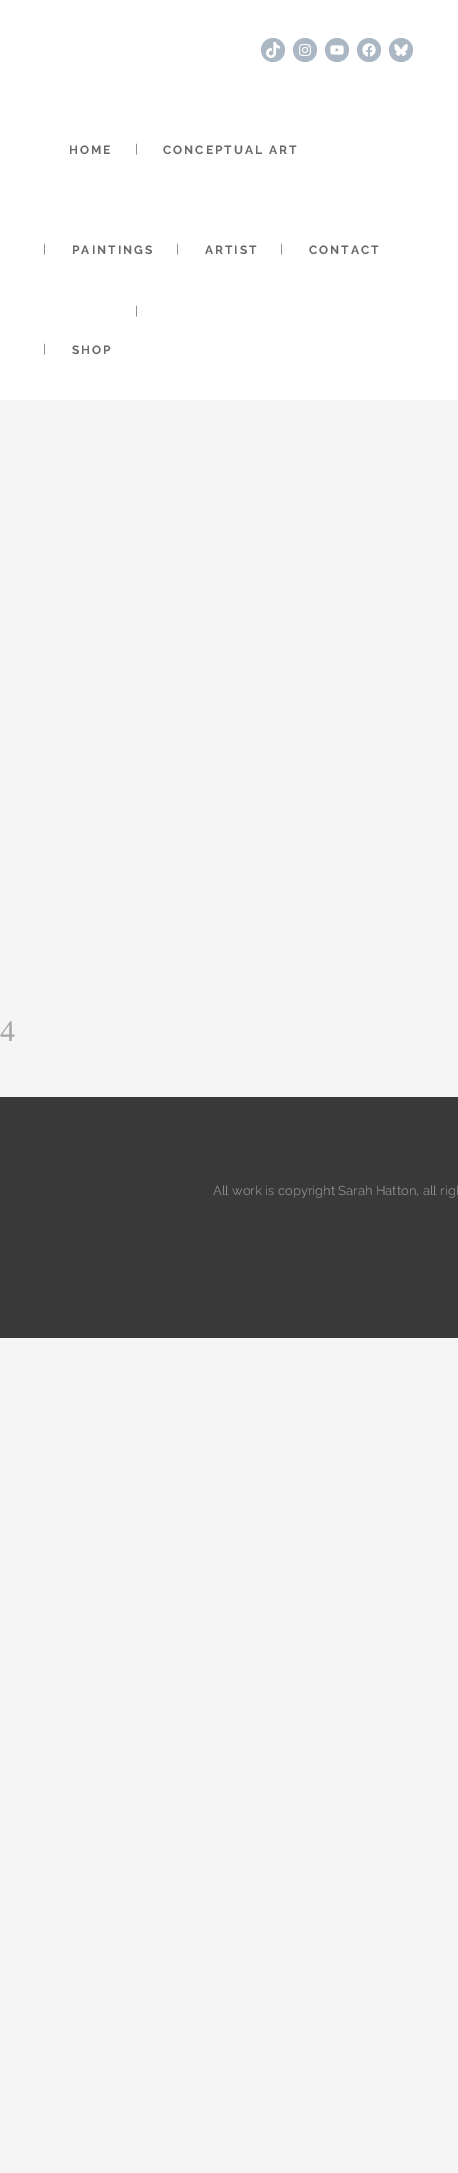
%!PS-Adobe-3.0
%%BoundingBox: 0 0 458 2173
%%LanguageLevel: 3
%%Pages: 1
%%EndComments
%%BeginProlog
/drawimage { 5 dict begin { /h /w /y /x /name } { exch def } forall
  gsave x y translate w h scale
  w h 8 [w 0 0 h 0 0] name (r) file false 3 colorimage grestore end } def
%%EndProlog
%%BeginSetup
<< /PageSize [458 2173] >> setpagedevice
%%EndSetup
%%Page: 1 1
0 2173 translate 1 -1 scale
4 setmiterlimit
0.961 setgray
0 0 458 2173 rectfill
1 setgray
0 0 458 400 rectfill
0.671 0.722 0.765 setrgbcolor
newpath 273 50 12 0 360 arc closepath fill
(images/1.raw) 266 42 14 16 drawimage
newpath 305 50 12 0 360 arc closepath fill
(images/2.raw) 299 44 12 12 drawimage
newpath 337 50 12 0 360 arc closepath fill
(images/3.raw) 330 45 14 10 drawimage
newpath 369 50 12 0 360 arc closepath fill
(images/4.raw) 362 43 14 14 drawimage
newpath 401 50 12 0 360 arc closepath fill
(images/5.raw) 394 44 14 12 drawimage
0.224 setgray
0 1097 458 241 rectfill
/Raleway-Bold [12 0 0 -12 0 0] selectfont
0.412 setgray
69 154 moveto 2 0 (HOME) ashow
/Raleway-Regular [12 0 0 -12 0 0] selectfont
135 153 moveto (|) show
/Raleway-Bold [12 0 0 -12 0 0] selectfont
163 154 moveto 2 0 (CONCEPTUAL ART) ashow
/Raleway-Regular [12 0 0 -12 0 0] selectfont
43 253 moveto (|) show
/Raleway-Bold [12 0 0 -12 0 0] selectfont
72 254 moveto 2 0 (PAINTINGS) ashow
/Raleway-Regular [12 0 0 -12 0 0] selectfont
176 253 moveto (|) show
/Raleway-Bold [12 0 0 -12 0 0] selectfont
205 254 moveto 2 0 (ARTIST) ashow
/Raleway-Regular [12 0 0 -12 0 0] selectfont
280 253 moveto (|) show
/Raleway-Bold [12 0 0 -12 0 0] selectfont
309 254 moveto 2 0 (CONTACT) ashow
/Raleway-Regular [12 0 0 -12 0 0] selectfont
135 315 moveto (|) show
43 353 moveto (|) show
/Raleway-Bold [12 0 0 -12 0 0] selectfont
72 354 moveto 2 0 (SHOP) ashow
/LiberationSerif-Regular [30 0 0 -30 0 0] selectfont
0.651 setgray
0 1041 moveto (4) show
/Raleway-Regular [13 0 0 -13 0 0] selectfont
0.553 setgray
213 1195 moveto (All work is copyright Sarah Hatton, all righ) show
showpage
%%EOF
